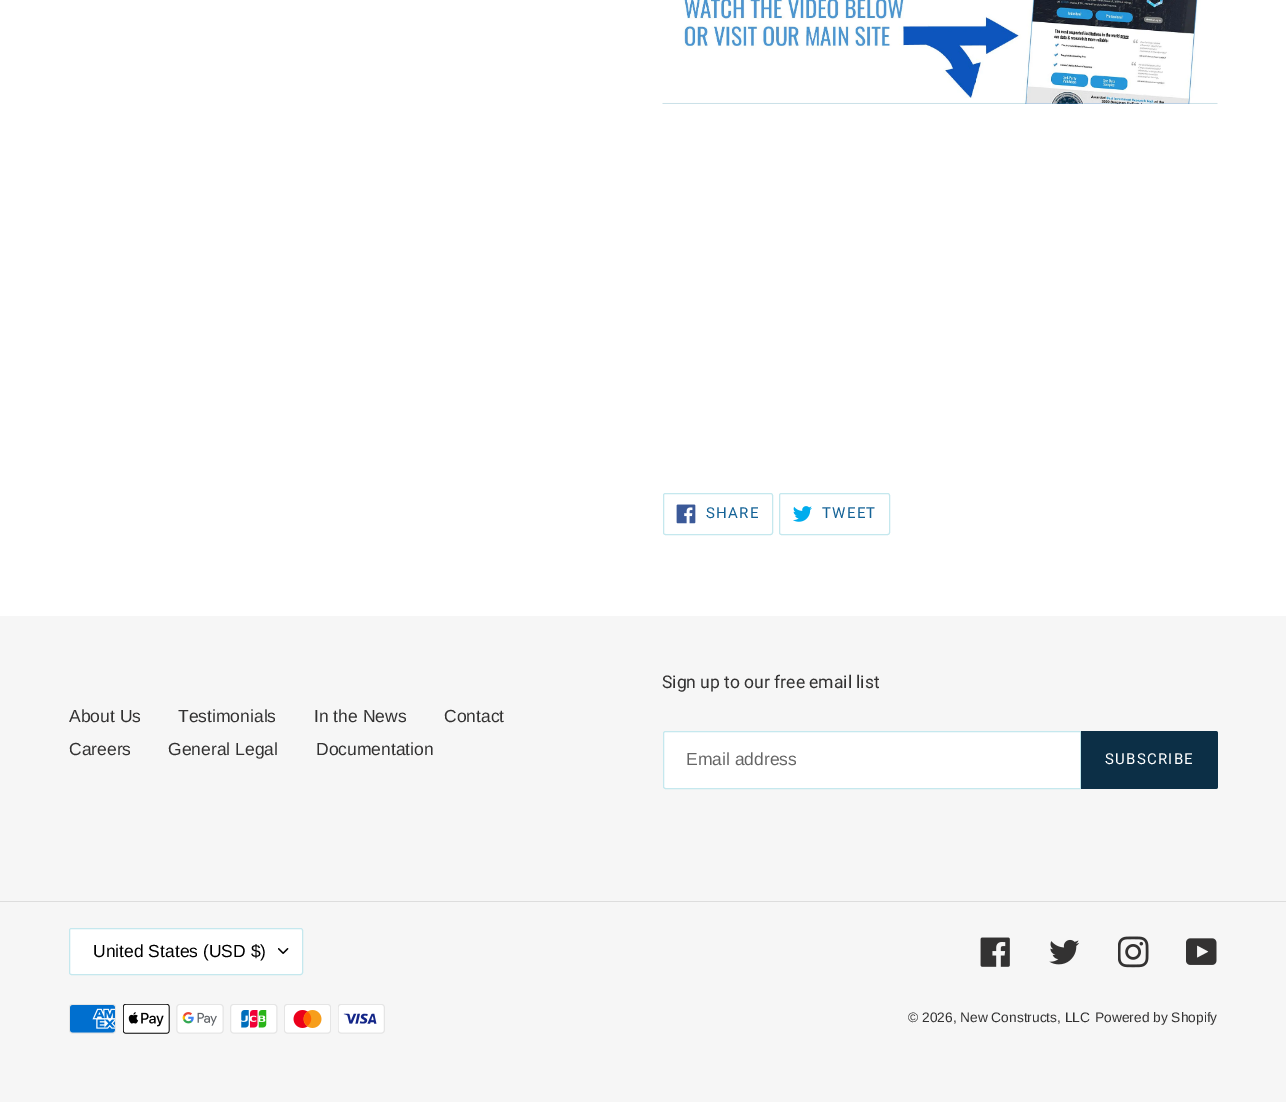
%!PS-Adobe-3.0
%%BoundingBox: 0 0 1286 1102
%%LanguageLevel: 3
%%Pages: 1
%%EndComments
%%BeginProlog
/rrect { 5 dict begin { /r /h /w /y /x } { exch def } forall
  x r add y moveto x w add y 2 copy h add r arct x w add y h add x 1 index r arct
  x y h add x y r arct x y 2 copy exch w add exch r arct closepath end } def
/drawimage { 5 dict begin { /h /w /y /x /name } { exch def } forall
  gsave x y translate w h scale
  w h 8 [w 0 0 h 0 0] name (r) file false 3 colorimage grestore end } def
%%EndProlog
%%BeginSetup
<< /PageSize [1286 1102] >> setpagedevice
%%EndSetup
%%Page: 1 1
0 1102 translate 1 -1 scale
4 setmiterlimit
1 setgray
0 0 1286 1102 rectfill
(images/1.raw) 662 0 556 104 drawimage
0.773 0.91 0.933 setrgbcolor
663.5 493.5 109 41 2 rrect stroke
(images/2.raw) 676 504 20 20 drawimage
779.5 493.5 110 41 2 rrect stroke
(images/3.raw) 793 506 19 16 drawimage
0.965 setgray
0 616 1286 486 rectfill
1 setgray
newpath 665.5 731.5 moveto 1080.5 731.5 lineto 1080.5 788.5 lineto 665.5 788.5 lineto 664.5 788.5 663.5 787.5 663.5 786.5 curveto 663.5 733.5 lineto 663.5 732.5 664.5 731.5 665.5 731.5 curveto closepath gsave fill grestore
0.773 0.91 0.933 setrgbcolor
stroke
0.047 0.184 0.275 setrgbcolor
newpath 1081 731 moveto 1215.5 731 lineto 1217 731 1218 732 1218 733.5 curveto 1218 786.5 lineto 1218 788 1217 789 1215.5 789 curveto 1081 789 lineto closepath fill
0.867 setgray
0 901 1286 1 rectfill
1 setgray
69 928 234 47 2.5 rrect fill
(images/4.raw) 278 948 11 6 drawimage
0.773 0.91 0.933 setrgbcolor
69.5 928.5 233 46 2 rrect stroke
(images/5.raw) 980 937 30 30 drawimage
(images/6.raw) 1049 939 31 26 drawimage
(images/7.raw) 1118 936 31 32 drawimage
(images/8.raw) 1186 938 31 27 drawimage
(images/9.raw) 69 1004 47 30 drawimage
(images/10.raw) 123 1004 47 30 drawimage
(images/11.raw) 176 1004 48 30 drawimage
(images/12.raw) 230 1004 48 30 drawimage
(images/13.raw) 284 1004 47 30 drawimage
(images/14.raw) 338 1004 47 30 drawimage
/Roboto-Regular [15 0 0 -15 0 0] selectfont
0.082 0.388 0.592 setrgbcolor
706 518 moveto 1.25 0 (SHARE) ashow
822 518 moveto 1.25 0 (TWEET) ashow
/LiberationSans-Regular [17.5 0 0 -17.5 0 0] selectfont
0.2 0.196 0.196 setrgbcolor
69 722 moveto (About Us) show
178 722 moveto (Testimonials) show
314 722 moveto (In the News) show
444 722 moveto (Contact) show
69 755 moveto (Careers) show
168 755 moveto (General Legal) show
316 755 moveto (Documentation) show
/Roboto-Regular [17.5 0 0 -17.5 0 0] selectfont
662 688 moveto (Sign up to our free email list) show
/LiberationSans-Regular [17.5 0 0 -17.5 0 0] selectfont
0.4 setgray
686 765 moveto (Email address) show
/Roboto-Regular [15 0 0 -15 0 0] selectfont
1 setgray
1105 764 moveto 1.25 0 (SUBSCRIBE) ashow
/LiberationSans-Regular [17.5 0 0 -17.5 0 0] selectfont
0 setgray
93 957 moveto (United States \(USD $\)) show
/LiberationSans-Regular [13.75 0 0 -13.75 0 0] selectfont
0.2 0.196 0.196 setrgbcolor
908 1022 moveto (© 2026, New Constructs, LLC) show
1095 1022 moveto (Powered by Shopify) show
showpage
%%EOF
